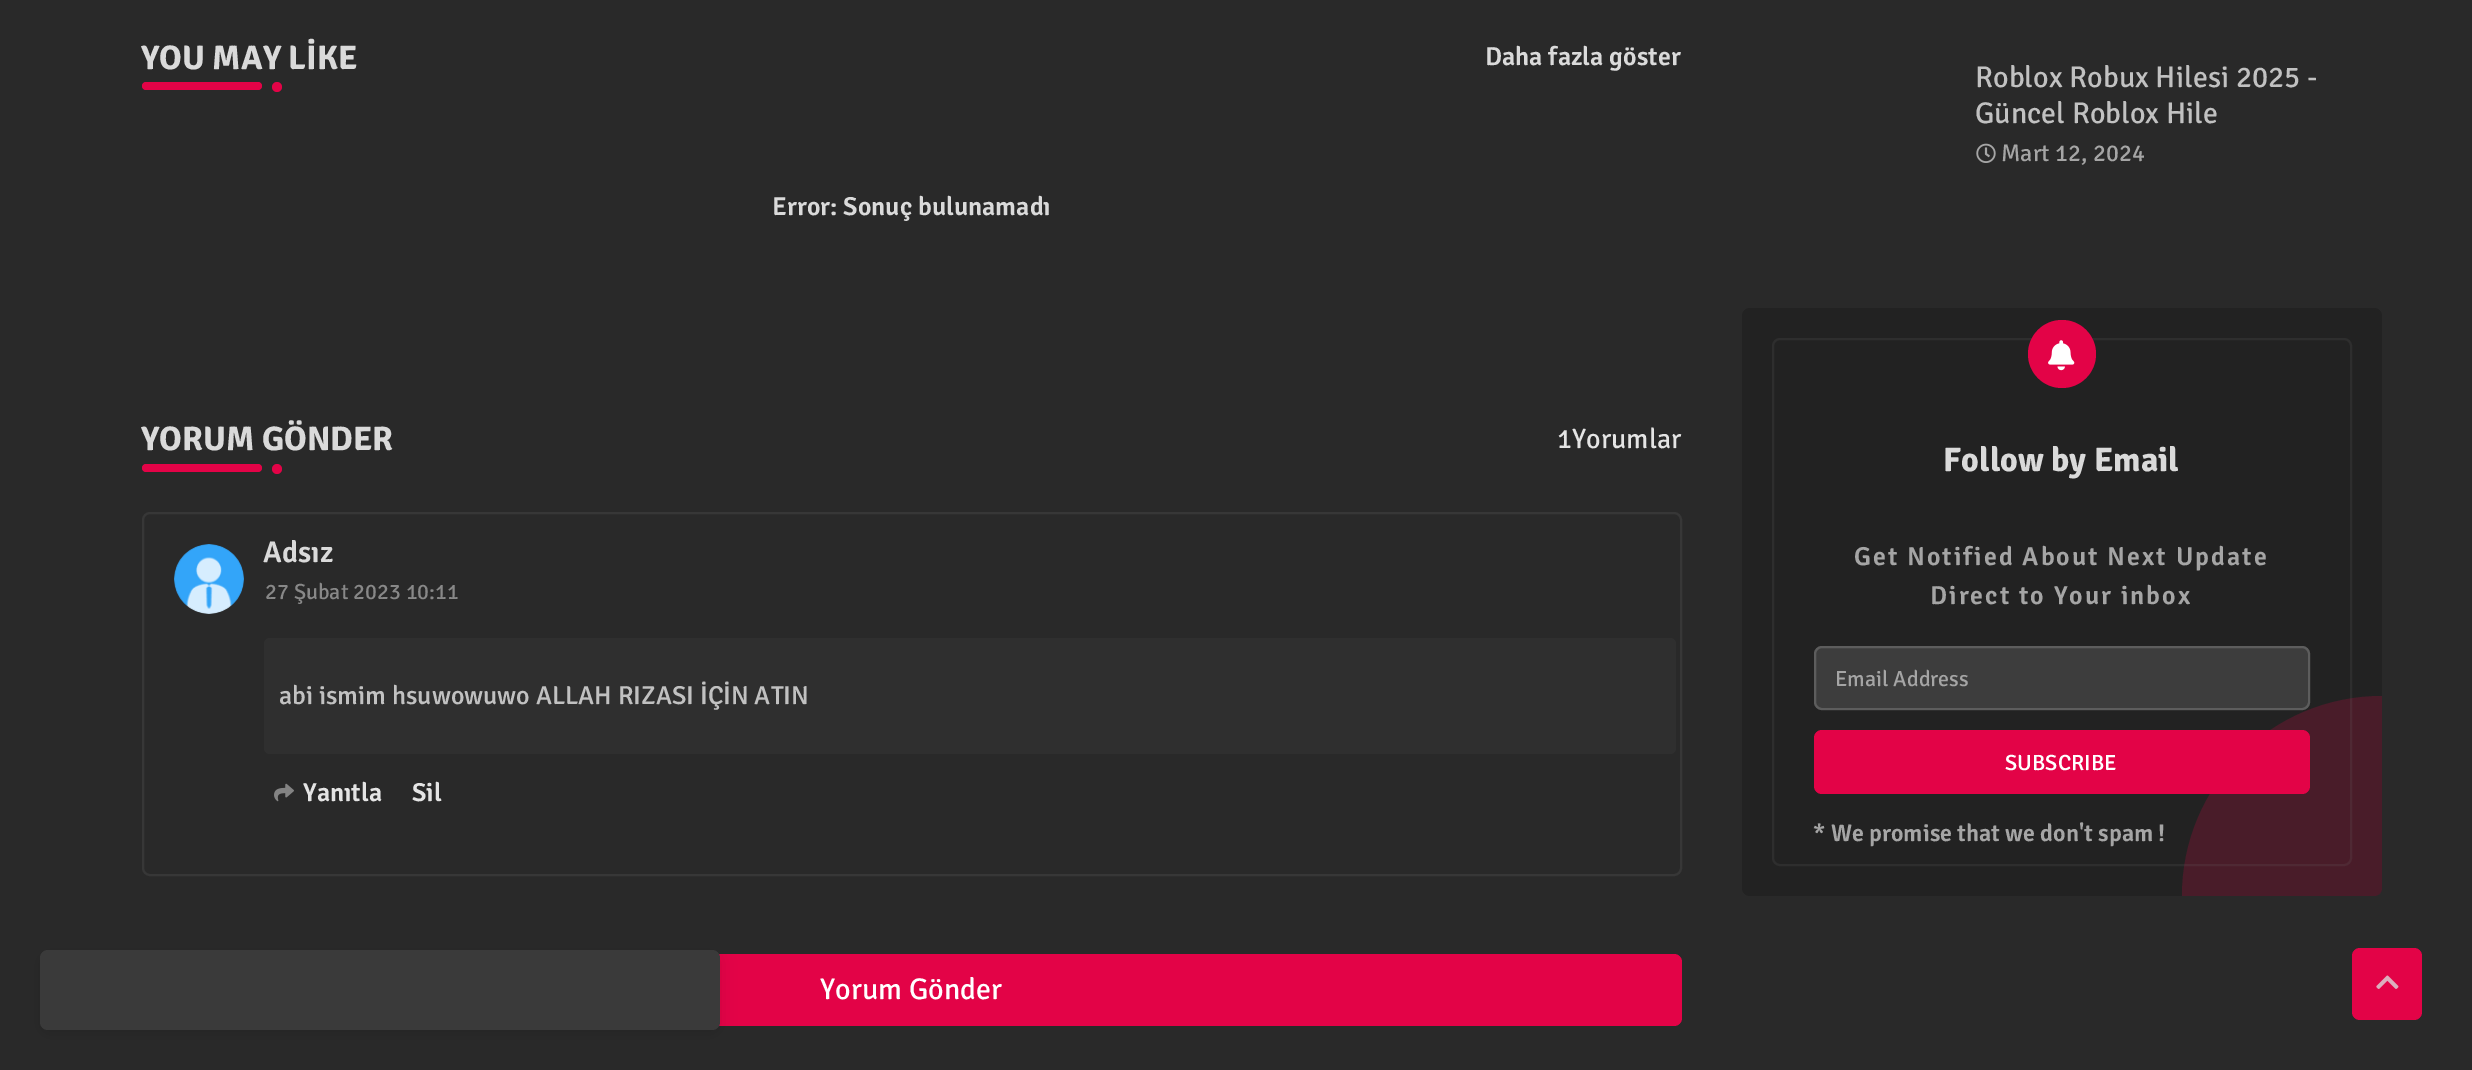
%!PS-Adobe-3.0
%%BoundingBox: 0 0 2472 1070
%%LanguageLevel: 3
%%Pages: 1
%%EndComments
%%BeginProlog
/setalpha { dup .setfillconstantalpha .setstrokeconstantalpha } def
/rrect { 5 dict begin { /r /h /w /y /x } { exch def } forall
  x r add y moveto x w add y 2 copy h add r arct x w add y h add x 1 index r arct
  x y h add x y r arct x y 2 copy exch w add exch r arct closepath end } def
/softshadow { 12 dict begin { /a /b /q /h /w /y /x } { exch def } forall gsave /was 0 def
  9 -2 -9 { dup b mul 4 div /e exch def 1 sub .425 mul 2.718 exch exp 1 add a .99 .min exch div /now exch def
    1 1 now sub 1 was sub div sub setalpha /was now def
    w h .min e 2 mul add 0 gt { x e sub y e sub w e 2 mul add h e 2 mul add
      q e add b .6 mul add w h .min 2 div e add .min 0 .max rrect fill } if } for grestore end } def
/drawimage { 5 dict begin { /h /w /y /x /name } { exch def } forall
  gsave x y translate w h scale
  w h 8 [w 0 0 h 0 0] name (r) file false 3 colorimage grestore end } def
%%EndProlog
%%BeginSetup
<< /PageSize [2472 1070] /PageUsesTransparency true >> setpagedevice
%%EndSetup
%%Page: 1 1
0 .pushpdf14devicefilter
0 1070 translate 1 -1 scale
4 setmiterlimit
0.161 setgray
0 0 2472 1070 rectfill
0.89 0.012 0.278 setrgbcolor
142 82 120 8 4 rrect fill
newpath 277 87 5 0 360 arc closepath fill
142 464 120 8 4 rrect fill
newpath 277 469 5 0 360 arc closepath fill
0.216 setgray
2 setlinewidth
143 513 1538 362 7 rrect stroke
(images/1.raw) 174 544 70 70 drawimage
0.184 setgray
264 638 1412 116 6 rrect fill
(images/2.raw) 274 783 20 19 drawimage
0.89 0.012 0.278 setrgbcolor
142 954 1540 72 8 rrect fill
(images/3.raw) 1976 143 20 20 drawimage
0.133 setgray
1742 308 640 588 8 rrect fill
0.2 setalpha
0.89 0.012 0.278 setrgbcolor
newpath 2382 696 moveto 2382 888 lineto 2382 892.5 2378.5 896 2374 896 curveto 2182 896 lineto 2182 785.5 2271.5 696 2382 696 curveto closepath fill
0.15 setalpha
0.439 setgray
1773 339 578 526 7 rrect stroke
1 setalpha
0.89 0.012 0.278 setrgbcolor
newpath 2062 354 34 0 360 arc closepath fill
(images/4.raw) 2048 340 27 31 drawimage
0.239 setgray
1814 646 496 64 8 rrect fill
0.53 setalpha
0.478 setgray
1815 647 494 62 7 rrect stroke
1 setalpha
0.89 0.012 0.278 setrgbcolor
1814 730 496 64 8 rrect fill
0 setgray
40 954 680 80 8 8 0.11 softshadow
0.227 setgray
40 950 680 80 8 rrect fill
0.89 0.012 0.278 setrgbcolor
2352 948 70 72 8 rrect fill
(images/5.raw) 2376 975 23 14 drawimage
/Signika-Bold [34 0 0 -34 0 0] selectfont
0.855 setgray
141 69 moveto (YOU MAY LİKE) show
/Signika-SemiBold [26 0 0 -26 0 0] selectfont
1485 65 moveto (Daha fazla göster) show
772 215 moveto (Error: Sonuç bulunamadı) show
/Signika-Bold [34 0 0 -34 0 0] selectfont
141 450 moveto (YORUM GÖNDER) show
/Signika-Regular [28 0 0 -28 0 0] selectfont
0.894 setgray
1557 448 moveto (1Yorumlar) show
/Signika-SemiBold [30 0 0 -30 0 0] selectfont
0.855 setgray
263 562 moveto (Adsız) show
/Signika-Regular [22 0 0 -22 0 0] selectfont
0.533 setgray
265 599 moveto (27 Şubat 2023 10:11) show
/Signika-Medium [26 0 0 -26 0 0] selectfont
0.757 setgray
279 704 moveto (abi ismim hsuwowuwo ALLAH RIZASI İÇİN ATIN) show
/Signika-SemiBold [26 0 0 -26 0 0] selectfont
0.894 setgray
303 801 moveto (Yanıtla) show
412 801 moveto (Sil) show
/Signika-Regular [30 0 0 -30 0 0] selectfont
1 setgray
820 999 moveto (Yorum Gönder) show
0.757 setgray
1975 87 moveto (Roblox Robux Hilesi 2025 -) show
1975 123 moveto (Güncel Roblox Hile) show
/Signika-Regular [24 0 0 -24 0 0] selectfont
0.647 setgray
2001 161 moveto (Mart 12, 2024) show
/Signika-Bold [34 0 0 -34 0 0] selectfont
0.855 setgray
1943 471 moveto (Follow by Email) show
/Signika-SemiBold [26 0 0 -26 0 0] selectfont
0.647 setgray
1854 565 moveto 2 0 (Get Notified About Next Update) ashow
1930 604 moveto 2 0 (Direct to Your inbox) ashow
/Signika-Regular [22 0 0 -22 0 0] selectfont
1835 686 moveto (Email Address) show
/Signika-Medium [22 0 0 -22 0 0] selectfont
1 setgray
2005 770 moveto (SUBSCRIBE) show
/Signika-SemiBold [24 0 0 -24 0 0] selectfont
0.647 setgray
1813 841 moveto (* We promise that we don't spam !) show
.poppdf14devicefilter showpage
%%EOF
